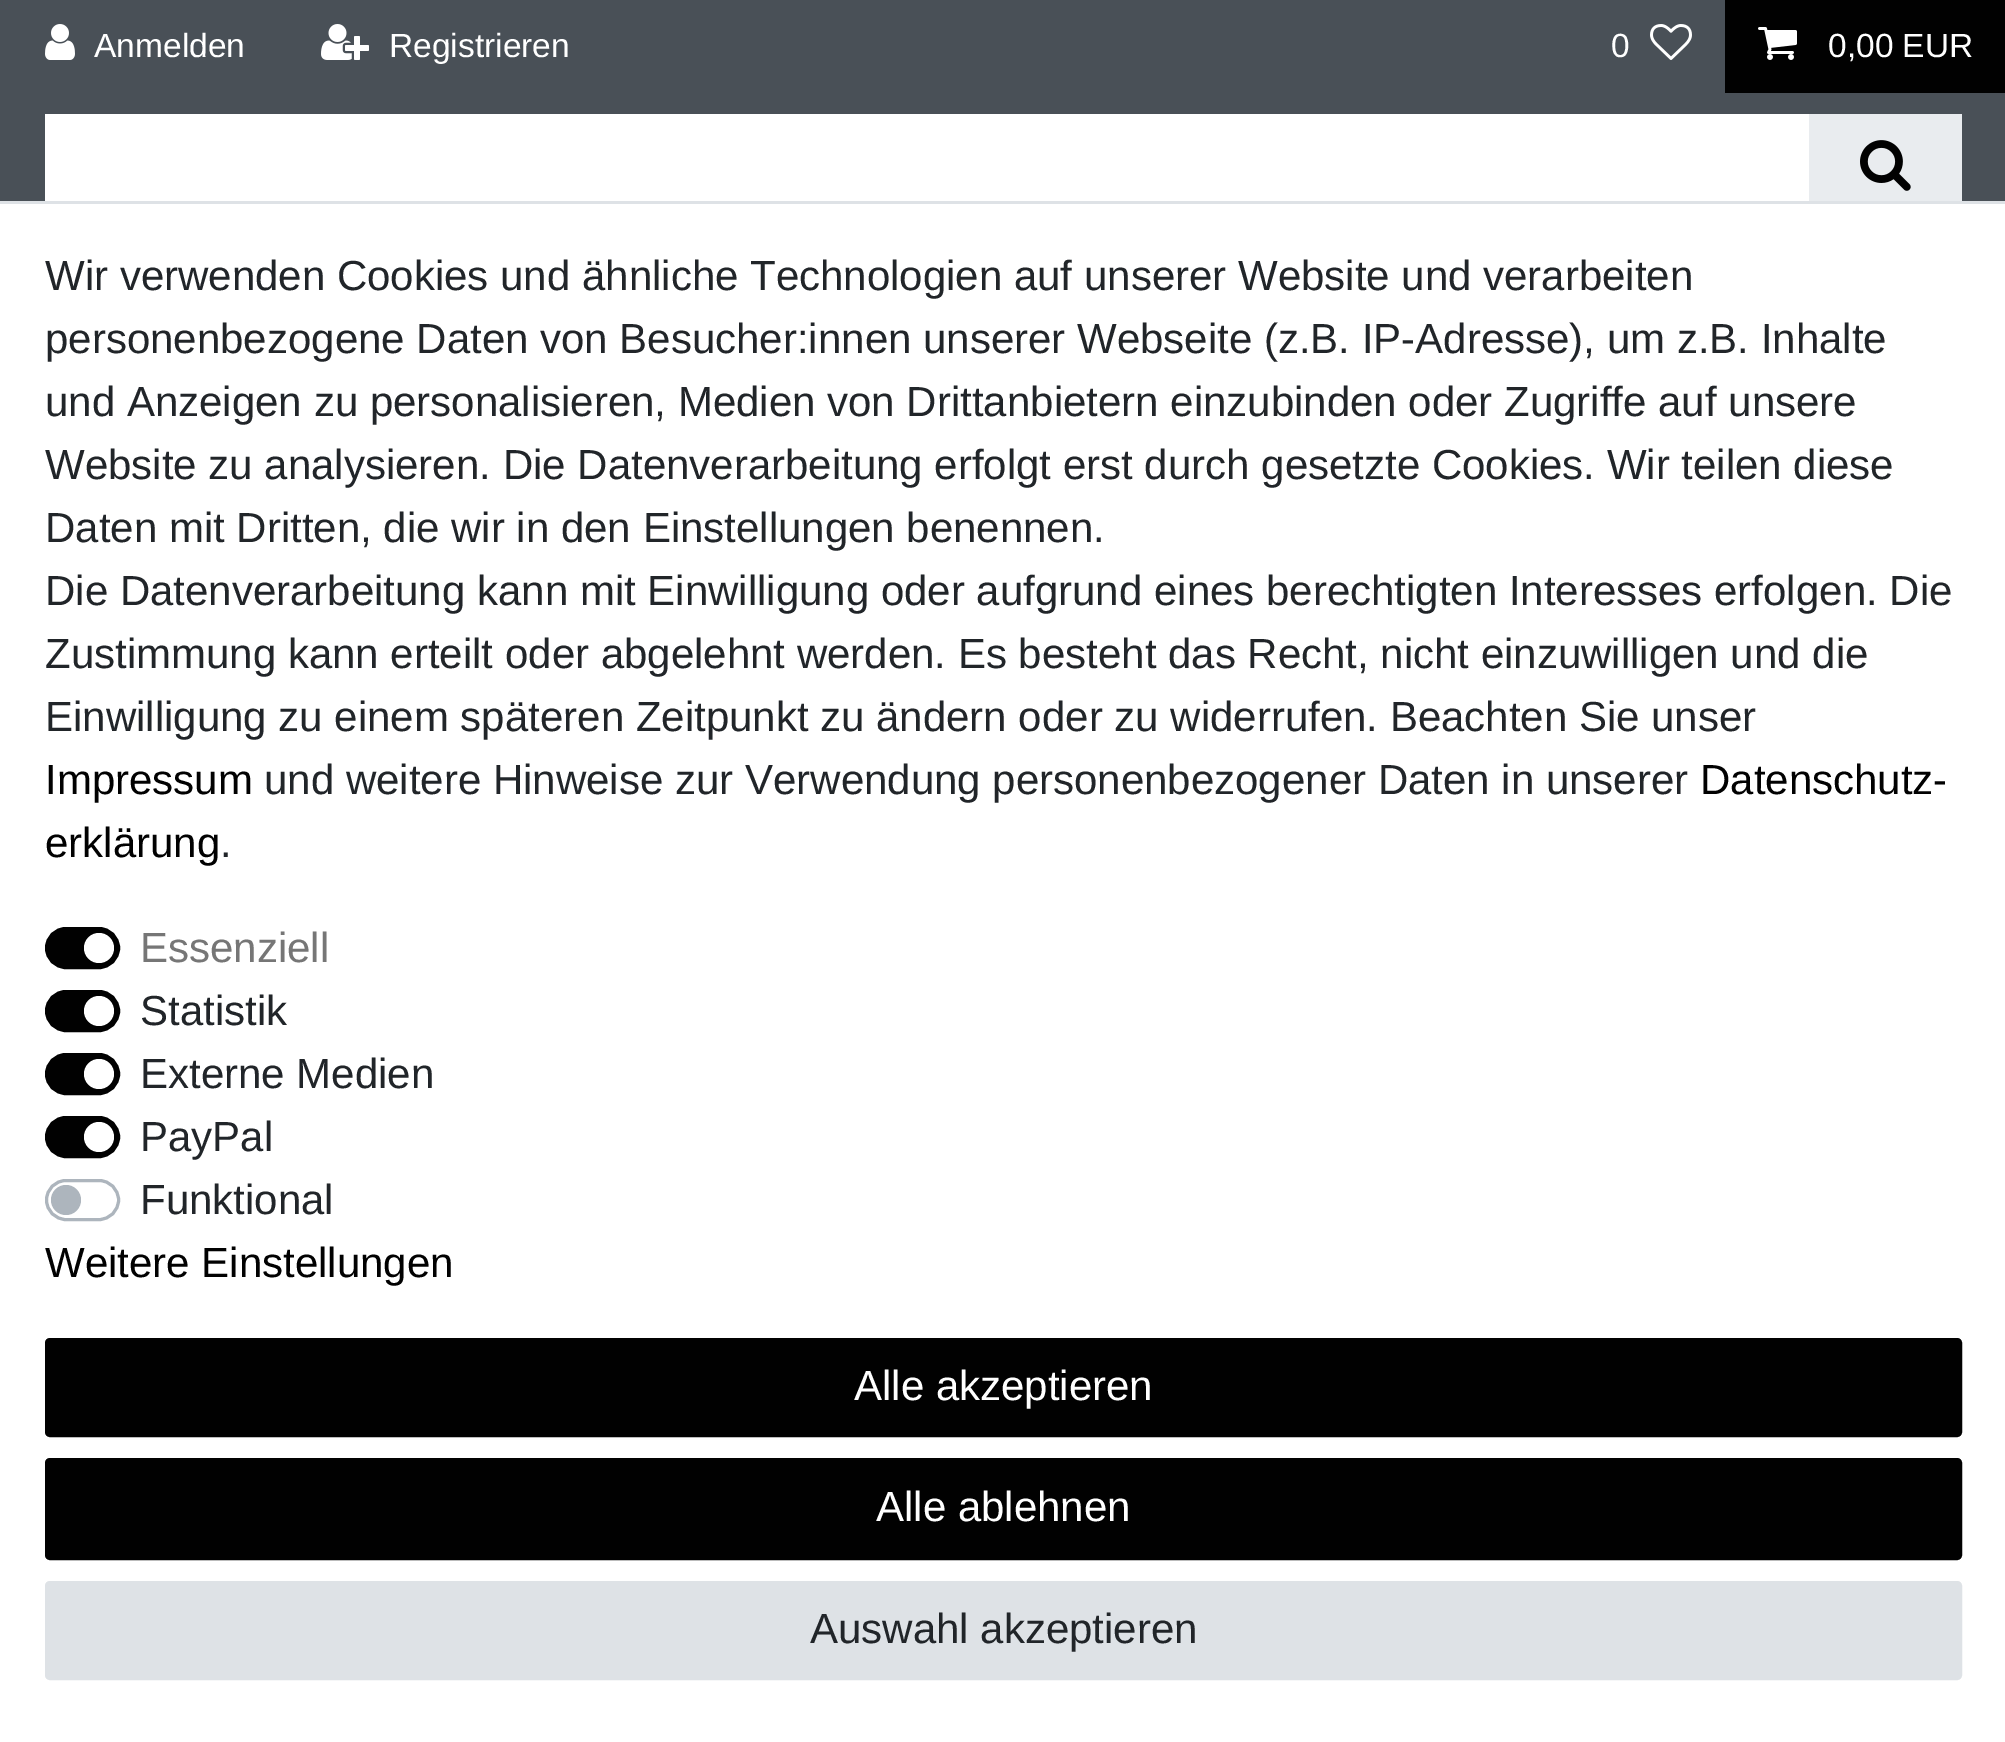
%!PS-Adobe-3.0
%%BoundingBox: 0 0 2005 1742
%%LanguageLevel: 3
%%Pages: 1
%%EndComments
%%BeginProlog
/rrect { 5 dict begin { /r /h /w /y /x } { exch def } forall
  x r add y moveto x w add y 2 copy h add r arct x w add y h add x 1 index r arct
  x y h add x y r arct x y 2 copy exch w add exch r arct closepath end } def
/drawimage { 5 dict begin { /h /w /y /x /name } { exch def } forall
  gsave x y translate w h scale
  w h 8 [w 0 0 h 0 0] name (r) file false 3 colorimage grestore end } def
%%EndProlog
%%BeginSetup
<< /PageSize [2005 1742] >> setpagedevice
%%EndSetup
%%Page: 1 1
0 1742 translate 1 -1 scale
4 setmiterlimit
0.286 0.314 0.341 setrgbcolor
0 0 2005 1742 rectfill
(images/1.raw) 45 24 30 36 drawimage
(images/2.raw) 321 24 48 36 drawimage
(images/3.raw) 1650 24 42 36 drawimage
0.004 setgray
1725 0 280 93 rectfill
(images/4.raw) 1758 27 39 33 drawimage
1 setgray
45 114 1764 87 rectfill
0.914 0.925 0.937 setrgbcolor
1809 114 153 87 rectfill
(images/5.raw) 1860 140 51 51 drawimage
1 setgray
0 204 2005 1538 rectfill
0.871 0.886 0.902 setrgbcolor
0 201 2005 3 rectfill
0.004 setgray
46.5 928.5 72 39 19.5 rrect gsave fill grestore
3 setlinewidth
stroke
1 setgray
newpath 99 948 15 0 360 arc closepath fill
0.004 setgray
46.5 991.5 72 39 19.5 rrect gsave fill grestore
stroke
1 setgray
newpath 99 1011 15 0 360 arc closepath fill
0.004 setgray
46.5 1054.5 72 39 19.5 rrect gsave fill grestore
stroke
1 setgray
newpath 99 1074 15 0 360 arc closepath fill
0.004 setgray
46.5 1117.5 72 39 19.5 rrect gsave fill grestore
stroke
1 setgray
newpath 99 1137 15 0 360 arc closepath fill
0.678 0.71 0.741 setrgbcolor
46.5 1180.5 72 39 19.5 rrect stroke
newpath 66 1200 15 0 360 arc closepath fill
0.004 setgray
46.5 1339.5 1914 96 3.5 rrect gsave fill grestore
stroke
46.5 1459.5 1914 99 3.5 rrect gsave fill grestore
stroke
0.871 0.886 0.902 setrgbcolor
46.5 1582.5 1914 96 3.5 rrect gsave fill grestore
stroke
/LiberationSans-Regular [33.5 0 0 -33.5 0 0] selectfont
1 setgray
94 57 moveto (Anmelden) show
389 57 moveto (Registrieren) show
1611 57 moveto (0) show
1828 57 moveto (0,00 EUR) show
/LiberationSans-Regular [42 0 0 -42 0 0] selectfont
0.129 0.145 0.161 setrgbcolor
45 290 moveto (Wir verwenden Cookies und ähnliche Technologien auf unserer Website und verarbeiten) show
45 353 moveto (personenbezogene Daten von Besucher:innen unserer Webseite \(z.B. IP-Adresse\), um z.B. Inhalte) show
45 416 moveto (und Anzeigen zu personalisieren, Medien von Drittanbietern einzubinden oder Zugriffe auf unsere) show
45 479 moveto (Website zu analysieren. Die Datenverarbeitung erfolgt erst durch gesetzte Cookies. Wir teilen diese) show
45 542 moveto (Daten mit Dritten, die wir in den Einstellungen benennen.) show
45 605 moveto (Die Datenverarbeitung kann mit Einwilligung oder aufgrund eines berechtigten Interesses erfolgen. Die) show
45 668 moveto (Zustimmung kann erteilt oder abgelehnt werden. Es besteht das Recht, nicht einzuwilligen und die) show
45 731 moveto (Einwilligung zu einem späteren Zeitpunkt zu ändern oder zu widerrufen. Beachten Sie unser) show
0.004 setgray
45 794 moveto (Impressum) show
0.129 0.145 0.161 setrgbcolor
264 794 moveto (und weitere Hinweise zur Verwendung personenbezogener Daten in unserer) show
0.004 setgray
1700 794 moveto (Datenschutz-) show
45 857 moveto (erklärung) show
0.129 0.145 0.161 setrgbcolor
220 857 moveto (.) show
0.463 setgray
140 962 moveto (Essenziell) show
0.129 0.145 0.161 setrgbcolor
140 1025 moveto (Statistik) show
140 1088 moveto (Externe Medien) show
140 1151 moveto (PayPal) show
140 1214 moveto (Funktional) show
0.004 setgray
45 1277 moveto (Weitere Einstellungen) show
1 setgray
854 1400 moveto (Alle akzeptieren) show
876 1521 moveto (Alle ablehnen) show
0.129 0.145 0.161 setrgbcolor
810 1643 moveto (Auswahl akzeptieren) show
showpage
%%EOF
